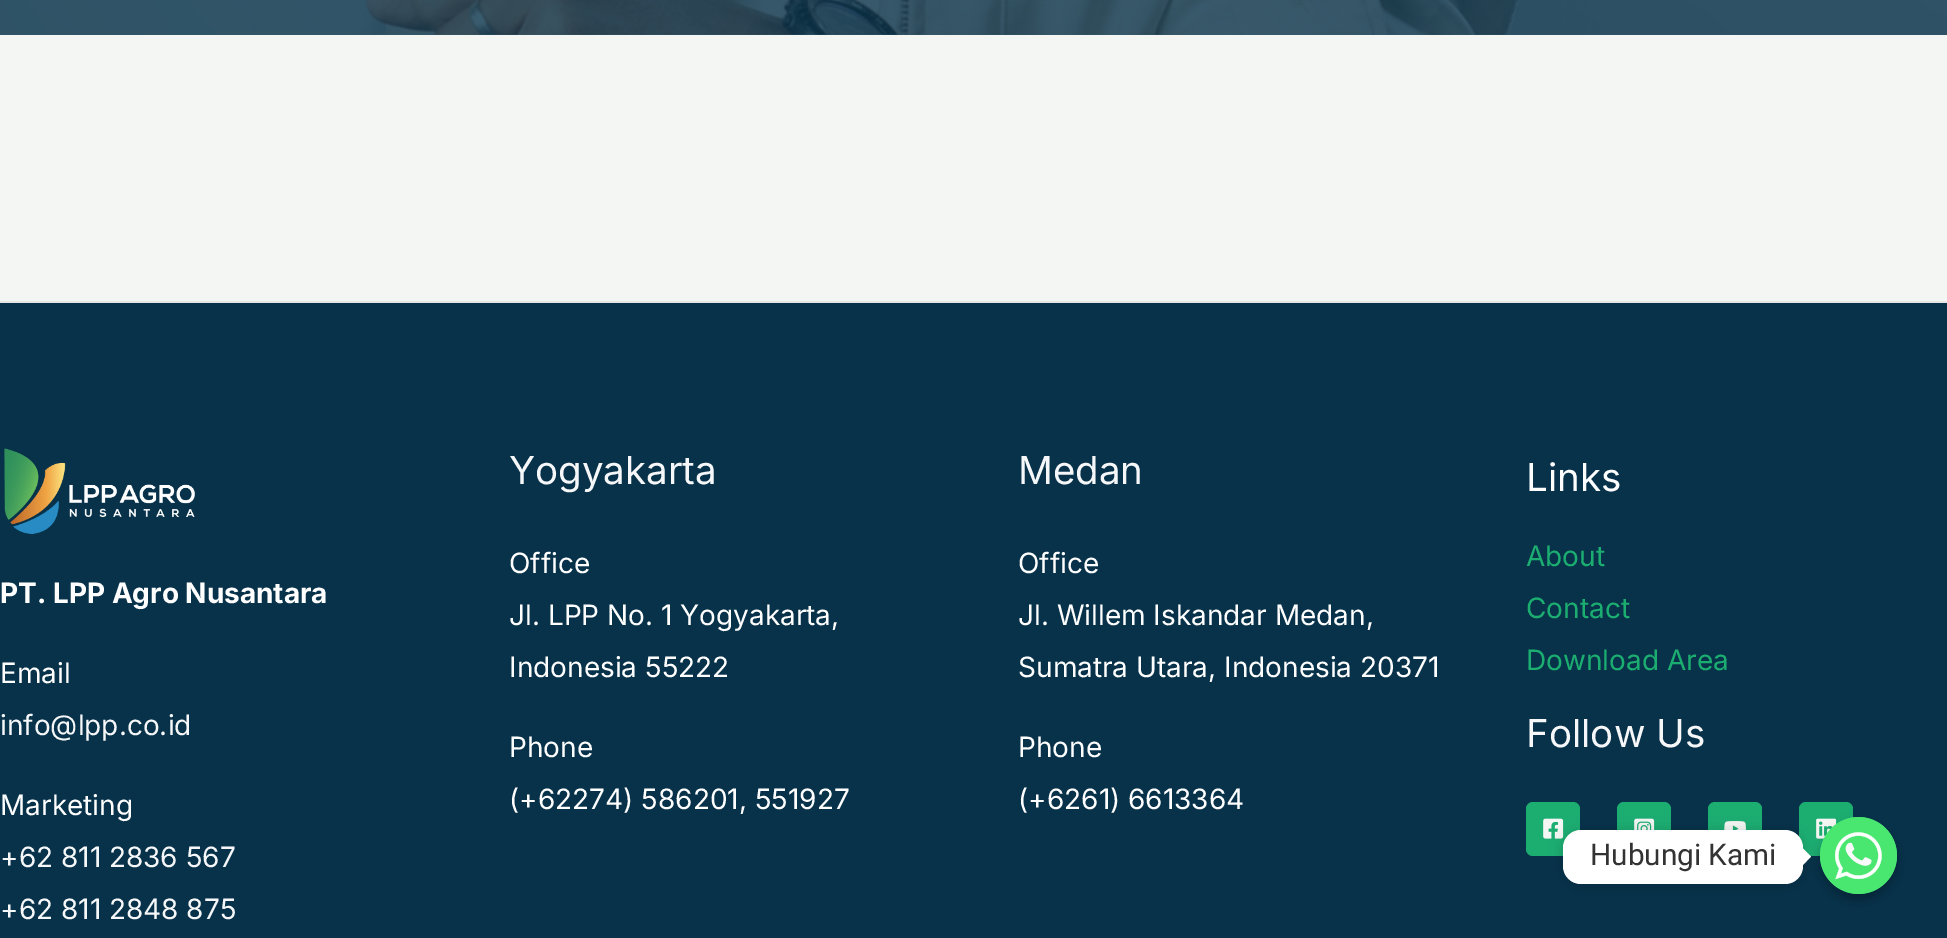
%!PS-Adobe-3.0
%%BoundingBox: 0 0 1947 938
%%LanguageLevel: 3
%%Pages: 1
%%EndComments
%%BeginProlog
/setalpha { dup .setfillconstantalpha .setstrokeconstantalpha } def
/rrect { 5 dict begin { /r /h /w /y /x } { exch def } forall
  x r add y moveto x w add y 2 copy h add r arct x w add y h add x 1 index r arct
  x y h add x y r arct x y 2 copy exch w add exch r arct closepath end } def
/softshadow { 12 dict begin { /a /b /q /h /w /y /x } { exch def } forall gsave /was 0 def
  9 -2 -9 { dup b mul 4 div /e exch def 1 sub .425 mul 2.718 exch exp 1 add a .99 .min exch div /now exch def
    1 1 now sub 1 was sub div sub setalpha /was now def
    w h .min e 2 mul add 0 gt { x e sub y e sub w e 2 mul add h e 2 mul add
      q e add b .6 mul add w h .min 2 div e add .min 0 .max rrect fill } if } for grestore end } def
/drawimage { 5 dict begin { /h /w /y /x /name } { exch def } forall
  gsave x y translate w h scale
  w h 8 [w 0 0 h 0 0] name (r) file false 3 colorimage grestore end } def
%%EndProlog
%%BeginSetup
<< /PageSize [1947 938] /PageUsesTransparency true >> setpagedevice
%%EndSetup
%%Page: 1 1
0 .pushpdf14devicefilter
0 938 translate 1 -1 scale
4 setmiterlimit
0.957 0.965 0.957 setrgbcolor
0 0 1947 938 rectfill
(images/1.raw) 0 0 1947 35 drawimage
0.027 0.196 0.29 setrgbcolor
0 303 1947 635 rectfill
0.902 setgray
0 301 1947 2 rectfill
(images/2.raw) 4 448 191 86 drawimage
0.11 0.678 0.443 setrgbcolor
1526 802 54 54 7 rrect fill
(images/3.raw) 1543 818 21 21 drawimage
1617 802 54 54 7 rrect fill
(images/4.raw) 1634 818 21 12 drawimage
1708 802 54 54 7 rrect fill
(images/5.raw) 1724 821 22 9 drawimage
1799 802 54 54 7 rrect fill
(images/6.raw) 1816 818 21 21 drawimage
0 setgray
1820 823 77 77 38.5 5 0.25 softshadow
(images/7.raw) 1820 817 77 77 drawimage
gsave
newpath 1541 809 moveto 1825 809 lineto 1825 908 lineto 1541 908 lineto closepath 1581 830 moveto 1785 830 lineto 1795 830 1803 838 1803 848 curveto 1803 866 lineto 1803 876 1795 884 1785 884 curveto 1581 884 lineto 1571 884 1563 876 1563 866 curveto 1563 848 lineto 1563 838 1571 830 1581 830 curveto closepath eoclip newpath
1563 831 240 55 18 7 0.15 softshadow
grestore
1 setgray
1563 830 240 54 18 rrect fill
newpath 1802.5 865.5 moveto 1802.5 848 lineto 1811 856.5 lineto closepath fill
/Inter-Bold [28 0 0 -28 0 0] selectfont
0 603 moveto (PT. LPP Agro Nusantara) show
/Inter-Regular [28 0 0 -28 0 0] selectfont
0 683 moveto (Email) show
0.965 0.969 0.973 setrgbcolor
0 735 moveto (info@lpp.co.id) show
1 setgray
0 815 moveto (Marketing) show
0.965 0.969 0.973 setrgbcolor
0 867 moveto (+62 811 2836 567) show
0 919 moveto (+62 811 2848 875) show
/Inter-Regular [38.5 0 0 -38.5 0 0] selectfont
509 484 moveto (Yogyakarta) show
/Inter-Regular [28 0 0 -28 0 0] selectfont
1 setgray
509 573 moveto (Office) show
509 625 moveto (Jl. LPP No. 1 Yogyakarta,) show
509 677 moveto (Indonesia 55222) show
509 757 moveto (Phone) show
509 809 moveto (\(+62274\) 586201, 551927) show
/Inter-Regular [38.5 0 0 -38.5 0 0] selectfont
0.965 0.969 0.973 setrgbcolor
1018 484 moveto (Medan) show
/Inter-Regular [28 0 0 -28 0 0] selectfont
1 setgray
1018 573 moveto (Office) show
1018 625 moveto (Jl. Willem Iskandar Medan,) show
1018 677 moveto (Sumatra Utara, Indonesia 20371) show
1018 757 moveto (Phone) show
1018 809 moveto (\(+6261\) 6613364) show
/Inter-Regular [38.5 0 0 -38.5 0 0] selectfont
1526 491 moveto (Links) show
/Inter-Regular [28 0 0 -28 0 0] selectfont
0.106 0.682 0.439 setrgbcolor
1526 566 moveto (About) show
1526 618 moveto (Contact) show
1526 670 moveto (Download Area) show
/Inter-Regular [38.5 0 0 -38.5 0 0] selectfont
0.965 0.969 0.973 setrgbcolor
1526 747 moveto (Follow Us) show
/Roboto-Regular [29.75 0 0 -29.75 0 0] selectfont
0.2 setgray
1590 865 moveto (Hubungi Kami) show
.poppdf14devicefilter showpage
%%EOF
